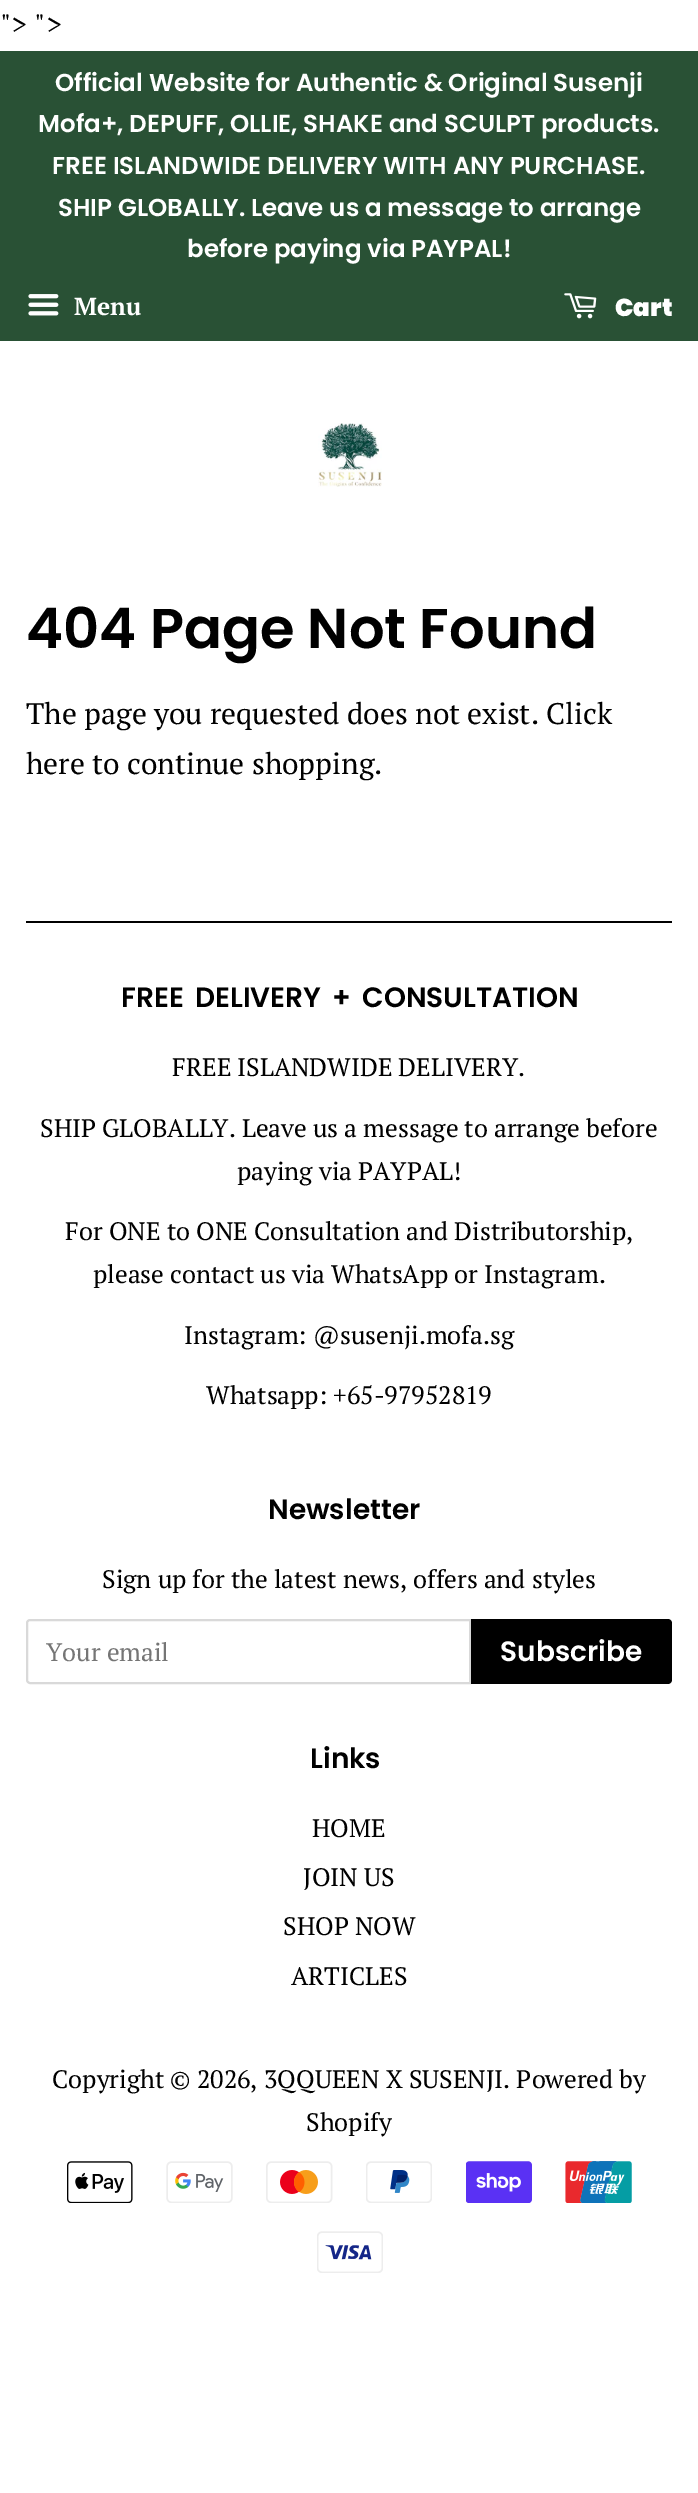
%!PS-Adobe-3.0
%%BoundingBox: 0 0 698 2493
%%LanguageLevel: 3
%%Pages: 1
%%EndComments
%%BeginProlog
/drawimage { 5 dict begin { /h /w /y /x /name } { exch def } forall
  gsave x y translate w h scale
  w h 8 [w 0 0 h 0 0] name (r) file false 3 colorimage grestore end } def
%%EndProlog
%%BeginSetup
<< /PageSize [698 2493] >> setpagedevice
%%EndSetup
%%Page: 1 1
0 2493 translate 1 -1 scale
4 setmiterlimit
1 setgray
0 0 698 2493 rectfill
0.161 0.318 0.208 setrgbcolor
0 51 698 290 rectfill
(images/1.raw) 28 294 31 22 drawimage
(images/2.raw) 564 293 33 26 drawimage
(images/3.raw) 318 423 64 64 drawimage
0 setgray
26 921 646 2 rectfill
0.851 setgray
2 setlinewidth
newpath 30 1620 moveto 470 1620 lineto 470 1683 lineto 30 1683 lineto 28.5 1683 27 1681.5 27 1680 curveto 27 1623 lineto 27 1621.5 28.5 1620 30 1620 curveto closepath stroke
0 setgray
newpath 471 1619 moveto 668 1619 lineto 670 1619 672 1621 672 1623 curveto 672 1680 lineto 672 1682 670 1684 668 1684 curveto 471 1684 lineto closepath fill
(images/4.raw) 67 2161 66 42 drawimage
(images/5.raw) 166 2161 67 42 drawimage
(images/6.raw) 266 2161 67 42 drawimage
(images/7.raw) 366 2161 66 42 drawimage
(images/8.raw) 466 2161 66 42 drawimage
(images/9.raw) 565 2161 67 42 drawimage
(images/10.raw) 317 2231 66 42 drawimage
/PTSerif-Regular [29.75 0 0 -29.75 0 0] selectfont
0 35 moveto ("> ">) show
/Poppins-SemiBold [24.5 0 0 -24.5 0 0] selectfont
1 setgray
55 91 moveto (Official Website for Authentic & Original Susenji) show
38 132 moveto (Mofa+, DEPUFF, OLLIE, SHAKE and SCULPT products.) show
52 174 moveto (FREE ISLANDWIDE DELIVERY WITH ANY PURCHASE.) show
58 216 moveto (SHIP GLOBALLY. Leave us a message to arrange) show
187 257 moveto (before paying via PAYPAL!) show
/PTSerif-Bold [24.5 0 0 -24.5 0 0] selectfont
74 315 moveto (Menu) show
/Poppins-Black [24.5 0 0 -24.5 0 0] selectfont
615 316 moveto (Cart) show
/Poppins-SemiBold [56 0 0 -56 0 0] selectfont
0 setgray
26 648 moveto (404 Page Not Found) show
/PTSerif-Regular [29.75 0 0 -29.75 0 0] selectfont
26 724 moveto (The page you requested does not exist. Click) show
26 774 moveto (here to continue shopping.) show
/Poppins-SemiBold [28 0 0 -28 0 0] selectfont
121 1007 moveto 4.5 0 32 (FREE DELIVERY + CONSULTATION) widthshow
/PTSerif-Regular [25.25 0 0 -25.25 0 0] selectfont
172 1076 moveto (FREE ISLANDWIDE DELIVERY.) show
40 1137 moveto (SHIP GLOBALLY. Leave us a message to arrange before) show
237 1180 moveto (paying via PAYPAL!) show
65 1240 moveto (For ONE to ONE Consultation and Distributorship,) show
93 1283 moveto (please contact us via WhatsApp or Instagram.) show
184 1344 moveto (Instagram: @susenji.mofa.sg) show
206 1404 moveto (Whatsapp: +65-97952819) show
/Poppins-SemiBold [28 0 0 -28 0 0] selectfont
268 1519 moveto (Newsletter) show
/PTSerif-Regular [25.25 0 0 -25.25 0 0] selectfont
102 1588 moveto (Sign up for the latest news, offers and styles) show
0.459 setgray
46 1661 moveto (Your email) show
/Poppins-SemiBold [28 0 0 -28 0 0] selectfont
1 setgray
500 1661 moveto (Subscribe) show
0 setgray
310 1768 moveto (Links) show
/PTSerif-Regular [25.25 0 0 -25.25 0 0] selectfont
312 1837 moveto (HOME) show
303 1886 moveto (JOIN US) show
283 1935 moveto (SHOP NOW) show
291 1985 moveto (ARTICLES) show
52 2088 moveto (Copyright © 2026, 3QQUEEN X SUSENJI. Powered by) show
306 2131 moveto (Shopify) show
showpage
%%EOF
